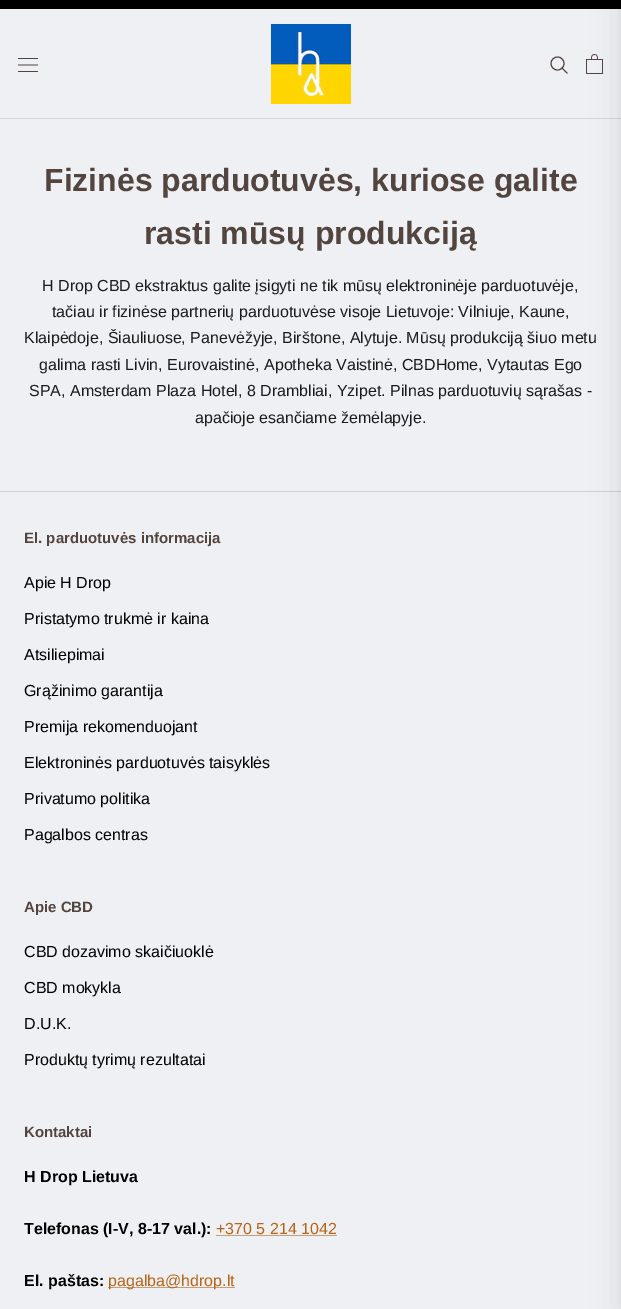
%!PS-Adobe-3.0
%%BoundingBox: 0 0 621 1309
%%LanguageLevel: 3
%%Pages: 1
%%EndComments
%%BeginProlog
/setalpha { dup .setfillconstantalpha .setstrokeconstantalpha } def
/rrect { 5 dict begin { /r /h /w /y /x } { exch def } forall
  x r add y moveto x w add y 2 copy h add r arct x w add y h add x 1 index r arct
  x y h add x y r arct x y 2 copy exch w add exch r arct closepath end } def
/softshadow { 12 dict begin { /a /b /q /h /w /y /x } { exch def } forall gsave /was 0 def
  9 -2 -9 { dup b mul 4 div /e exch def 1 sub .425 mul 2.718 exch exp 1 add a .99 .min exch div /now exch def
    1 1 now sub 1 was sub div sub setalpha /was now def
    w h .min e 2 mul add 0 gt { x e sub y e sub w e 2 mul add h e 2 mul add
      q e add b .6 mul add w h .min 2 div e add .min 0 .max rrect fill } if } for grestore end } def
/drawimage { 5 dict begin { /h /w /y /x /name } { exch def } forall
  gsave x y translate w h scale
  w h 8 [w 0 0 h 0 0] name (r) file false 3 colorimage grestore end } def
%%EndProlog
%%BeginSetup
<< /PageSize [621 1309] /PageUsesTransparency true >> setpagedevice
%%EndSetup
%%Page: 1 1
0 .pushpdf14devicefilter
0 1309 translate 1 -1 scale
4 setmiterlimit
0.937 0.941 0.957 setrgbcolor
0 0 621 1309 rectfill
0 setgray
0 0 621 9 rectfill
0.843 0.839 0.851 setrgbcolor
0 118 621 1 rectfill
(images/1.raw) 18 58 20 14 drawimage
(images/2.raw) 271 24 80 80 drawimage
0.322 0.267 0.243 setrgbcolor
2 setlinecap
newpath 567 73 moveto 562 68 lineto stroke
0 setlinecap
newpath 557.5 63.5 6.5 0 360 arc closepath stroke
(images/3.raw) 586 54 17 20 drawimage
0.812 0.816 0.827 setrgbcolor
0 491 621 1 rectfill
0.804 0.616 0.443 setrgbcolor
216 1235 121 1 rectfill
108 1287 127 1 rectfill
0 setgray
621 0 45 1309 0 15 0.1 softshadow
/LiberationSans-Bold [32 0 0 -32 0 0] selectfont
0.322 0.267 0.243 setrgbcolor
44 191 moveto (Fizinės parduotuvės, kuriose galite) show
144 244 moveto (rasti mūsų produkciją) show
/LiberationSans-Regular [16 0 0 -16 0 0] selectfont
0.11 0.106 0.106 setrgbcolor
42 291 moveto (H Drop CBD ekstraktus galite įsigyti ne tik mūsų elektroninėje parduotuvėje,) show
52 317 moveto (tačiau ir fizinėse partnerių parduotuvėse visoje Lietuvoje: Vilniuje, Kaune,) show
24 343 moveto (Klaipėdoje, Šiauliuose, Panevėžyje, Birštone, Alytuje. Mūsų produkciją šiuo metu) show
39 370 moveto (galima rasti Livin, Eurovaistinė, Apotheka Vaistinė, CBDHome, Vytautas Ego) show
29 396 moveto (SPA, Amsterdam Plaza Hotel, 8 Drambliai, Yzipet. Pilnas parduotuvių sąrašas -) show
195 423 moveto (apačioje esančiame žemėlapyje.) show
/LiberationSans-Bold [15 0 0 -15 0 0] selectfont
0.322 0.267 0.243 setrgbcolor
24 543 moveto (El. parduotuvės informacija) show
/LiberationSans-Regular [16 0 0 -16 0 0] selectfont
0 setgray
24 588 moveto (Apie H Drop) show
24 624 moveto (Pristatymo trukmė ir kaina) show
24 660 moveto (Atsiliepimai) show
24 696 moveto (Grąžinimo garantija) show
24 732 moveto (Premija rekomenduojant) show
24 768 moveto (Elektroninės parduotuvės taisyklės) show
24 804 moveto (Privatumo politika) show
24 840 moveto (Pagalbos centras) show
/LiberationSans-Bold [15 0 0 -15 0 0] selectfont
0.322 0.267 0.243 setrgbcolor
24 912 moveto (Apie CBD) show
/LiberationSans-Regular [16 0 0 -16 0 0] selectfont
0 setgray
24 957 moveto (CBD dozavimo skaičiuoklė) show
24 993 moveto (CBD mokykla) show
24 1029 moveto (D.U.K.) show
24 1065 moveto (Produktų tyrimų rezultatai) show
/LiberationSans-Bold [15 0 0 -15 0 0] selectfont
0.322 0.267 0.243 setrgbcolor
24 1137 moveto (Kontaktai) show
/LiberationSans-Bold [16 0 0 -16 0 0] selectfont
0 setgray
24 1182 moveto (H Drop Lietuva) show
24 1234 moveto (Telefonas \(I-V, 8-17 val.\):) show
/LiberationSans-Regular [16 0 0 -16 0 0] selectfont
0.718 0.396 0.098 setrgbcolor
216 1234 moveto (+370 5 214 1042) show
/LiberationSans-Bold [16 0 0 -16 0 0] selectfont
0 setgray
24 1286 moveto (El. paštas:) show
/LiberationSans-Regular [16 0 0 -16 0 0] selectfont
0.718 0.396 0.098 setrgbcolor
108 1286 moveto (pagalba@hdrop.lt) show
.poppdf14devicefilter showpage
%%EOF
